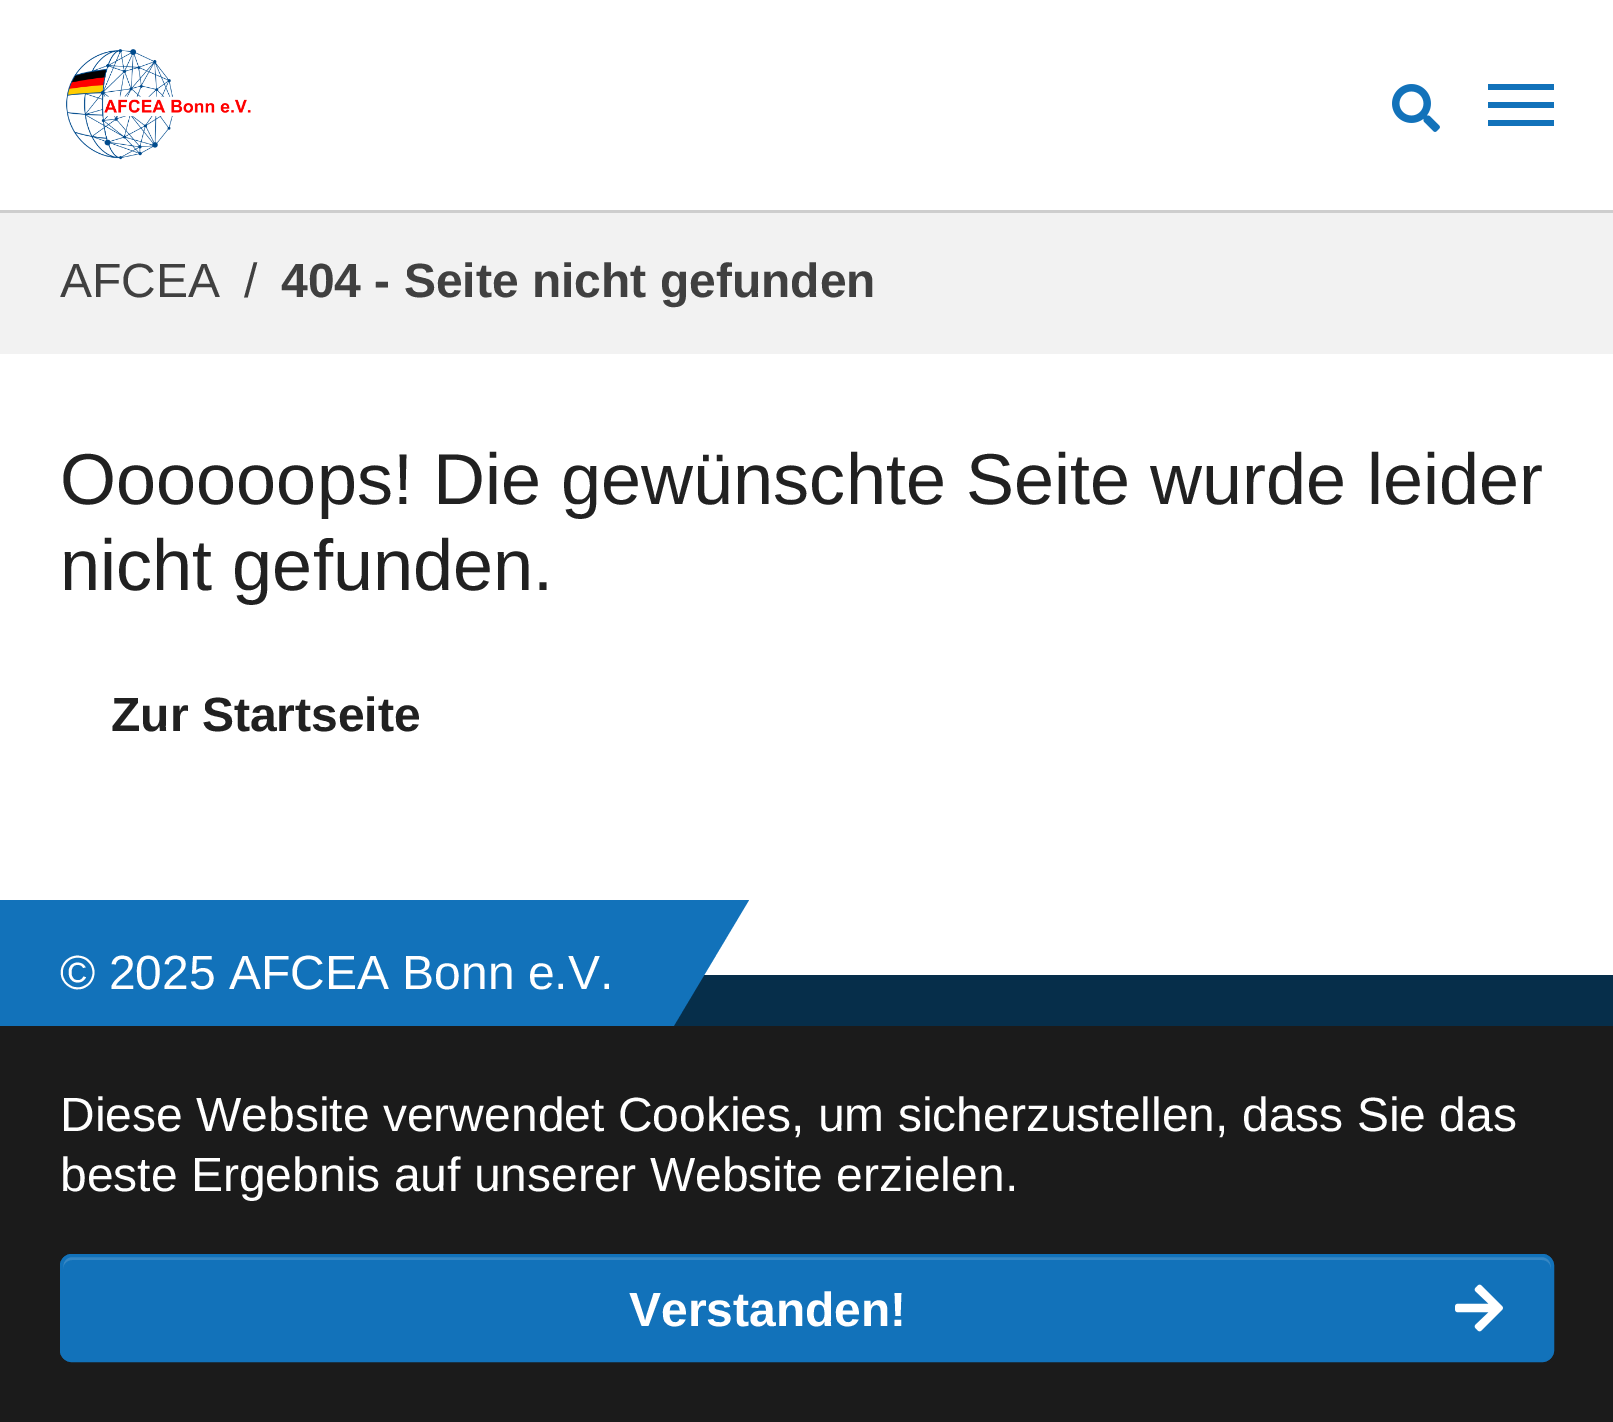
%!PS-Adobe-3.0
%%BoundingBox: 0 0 1613 1422
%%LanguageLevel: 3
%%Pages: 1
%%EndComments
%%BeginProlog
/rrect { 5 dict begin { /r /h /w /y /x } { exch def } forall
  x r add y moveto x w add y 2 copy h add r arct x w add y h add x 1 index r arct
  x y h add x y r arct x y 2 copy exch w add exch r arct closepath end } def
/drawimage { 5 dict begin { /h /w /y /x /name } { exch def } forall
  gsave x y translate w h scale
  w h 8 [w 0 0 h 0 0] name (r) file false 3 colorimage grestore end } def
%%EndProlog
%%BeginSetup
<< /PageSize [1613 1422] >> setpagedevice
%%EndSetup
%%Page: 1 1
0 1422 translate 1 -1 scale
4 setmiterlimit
1 setgray
0 0 1613 1422 rectfill
0.808 setgray
0 210 1613 3 rectfill
(images/1.raw) 66 49 185 111 drawimage
(images/2.raw) 1392 84 48 48 drawimage
0.071 0.447 0.729 setrgbcolor
1488 102 66 6 rectfill
1488 84 66 6 rectfill
1488 120 66 6 rectfill
0.949 setgray
0 213 1613 141 rectfill
0.024 0.18 0.29 setrgbcolor
673 975 940 51 rectfill
0.071 0.447 0.729 setrgbcolor
newpath 0 900 moveto 0 1049 lineto 660 1049 lineto 749 900 lineto closepath fill
0.106 setgray
0 1026 1613 396 rectfill
0.071 0.447 0.729 setrgbcolor
60 1254 1494 108 12 rrect fill
(images/3.raw) 1455 1284 48 48 drawimage
0.212 0.529 0.769 setrgbcolor
newpath 72 1260 moveto 1542 1260 lineto 1547 1260 1551 1264 1551 1269 curveto 1551 1263 1549 1257 1542 1257 curveto 72 1257 lineto 65 1257 63 1263 63 1269 curveto 63 1264 67 1260 72 1260 curveto closepath fill
0.071 0.447 0.729 setrgbcolor
3 setlinewidth
61.5 1255.5 1491 105 10.5 rrect stroke
/Arimo-Regular [48 0 0 -48 0 0] selectfont
0.251 setgray
60 297 moveto (AFCEA) show
244 297 moveto (/) show
/Arimo-Bold [48 0 0 -48 0 0] selectfont
281 297 moveto (404 - Seite nicht gefunden) show
/Arimo-Regular [72.1 0 0 -72.1 0 0] selectfont
0.129 setgray
60 504 moveto (Oooooops! Die gewünschte Seite wurde leider) show
60 590 moveto (nicht gefunden.) show
/Arimo-Bold [48 0 0 -48 0 0] selectfont
111 731 moveto (Zur Startseite) show
/Arimo-Regular [48 0 0 -48 0 0] selectfont
1 setgray
60 989 moveto (© 2025 AFCEA Bonn e.V.) show
60 1131 moveto (Diese Website verwendet Cookies, um sicherzustellen, dass Sie das) show
60 1191 moveto (beste Ergebnis auf unserer Website erzielen.) show
/Arimo-Bold [48 0 0 -48 0 0] selectfont
629 1326 moveto (Verstanden!) show
showpage
%%EOF
